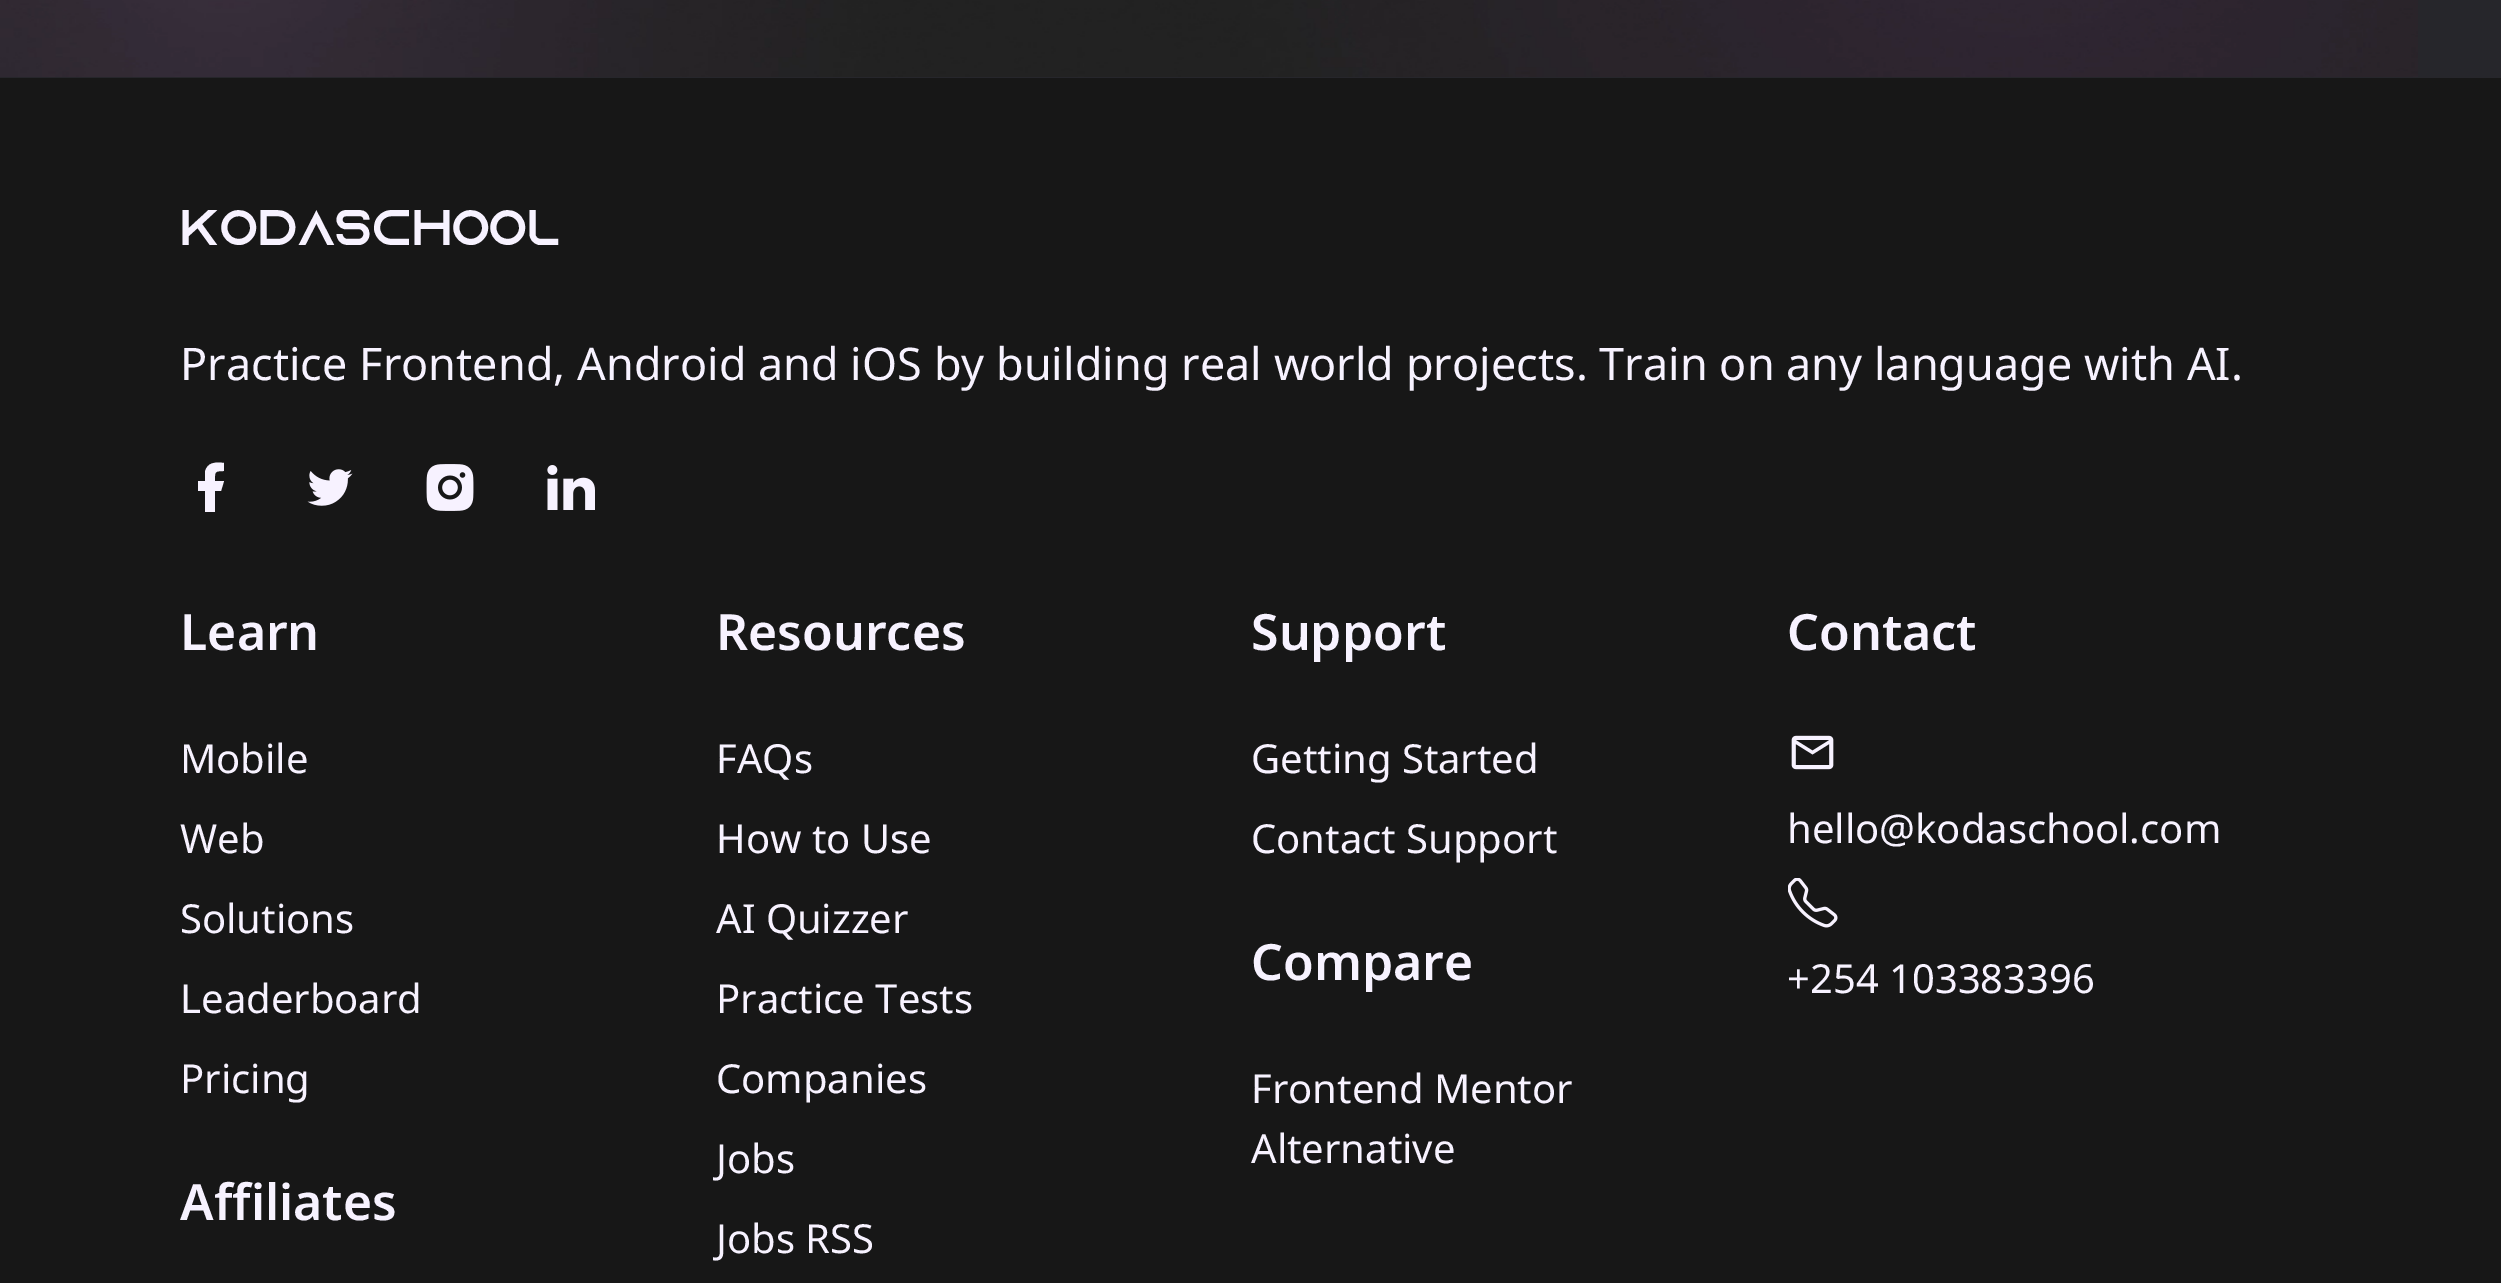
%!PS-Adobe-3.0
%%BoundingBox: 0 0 2501 1283
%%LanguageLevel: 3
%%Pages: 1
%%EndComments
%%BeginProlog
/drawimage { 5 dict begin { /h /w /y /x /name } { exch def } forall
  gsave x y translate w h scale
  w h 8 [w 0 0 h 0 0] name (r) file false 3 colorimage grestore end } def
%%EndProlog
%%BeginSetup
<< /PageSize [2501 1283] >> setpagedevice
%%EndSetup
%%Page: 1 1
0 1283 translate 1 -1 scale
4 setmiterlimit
0.09 setgray
0 0 2501 1283 rectfill
0.149 0.149 0.169 setrgbcolor
0 0 2501 78 rectfill
(images/1.raw) 0 0 2418 77 drawimage
0.969 0.949 1 setrgbcolor
newpath 215 491 moveto 221 491 lineto 224 481 lineto 215 481 lineto 215 472 214 471 224 471 curveto 224 463 lineto 216 462 207 462 205 472 curveto 205 481 lineto 198 481 lineto 198 491 lineto 205 491 lineto 205 512 lineto 215 512 lineto closepath fill
(images/2.raw) 307 469 46 37 drawimage
(images/3.raw) 426 464 48 47 drawimage
(images/4.raw) 547 465 48 45 drawimage
(images/5.raw) 1791 735 43 35 drawimage
(images/6.raw) 1788 878 50 50 drawimage
/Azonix-Regular [50 0 0 -50 0 0] selectfont
180 245 moveto (KODASCHOOL) show
/NotoSans-Regular [45 0 0 -45 0 0] selectfont
180 380 moveto (Practice Frontend, Android and iOS by building real world projects. Train on any language with AI.) show
/NotoSans-SemiBold [50 0 0 -50 0 0] selectfont
180 650 moveto (Learn) show
/NotoSans-Regular [40 0 0 -40 0 0] selectfont
180 773 moveto (Mobile) show
180 853 moveto (Web) show
180 933 moveto (Solutions) show
180 1013 moveto (Leaderboard) show
180 1093 moveto (Pricing) show
/NotoSans-SemiBold [50 0 0 -50 0 0] selectfont
180 1220 moveto (Affiliates) show
716 650 moveto (Resources) show
/NotoSans-Regular [40 0 0 -40 0 0] selectfont
716 773 moveto (FAQs) show
716 853 moveto (How to Use) show
716 933 moveto (AI Quizzer) show
716 1013 moveto (Practice Tests) show
716 1093 moveto (Companies) show
716 1173 moveto (Jobs) show
716 1253 moveto (Jobs RSS) show
/NotoSans-SemiBold [50 0 0 -50 0 0] selectfont
1251 650 moveto (Support) show
/NotoSans-Regular [40 0 0 -40 0 0] selectfont
1251 773 moveto (Getting Started) show
1251 853 moveto (Contact Support) show
/NotoSans-SemiBold [50 0 0 -50 0 0] selectfont
1251 980 moveto (Compare) show
/NotoSans-Regular [40 0 0 -40 0 0] selectfont
1251 1103 moveto (Frontend Mentor) show
1251 1163 moveto (Alternative) show
/NotoSans-SemiBold [50 0 0 -50 0 0] selectfont
1787 650 moveto (Contact) show
/NotoSans-Regular [40 0 0 -40 0 0] selectfont
1787 843 moveto (hello@kodaschool.com) show
1787 993 moveto (+254 103383396) show
showpage
%%EOF
